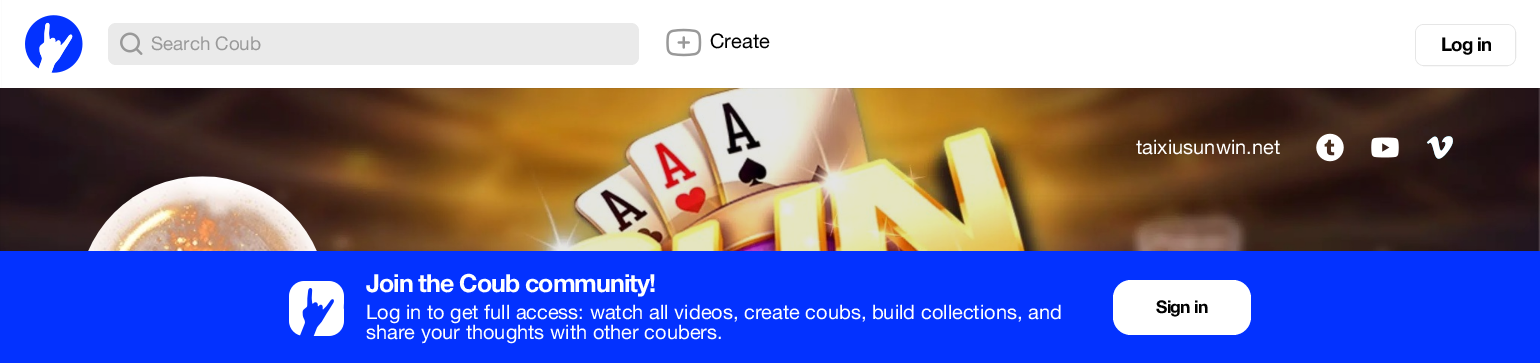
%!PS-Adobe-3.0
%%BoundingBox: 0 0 1540 363
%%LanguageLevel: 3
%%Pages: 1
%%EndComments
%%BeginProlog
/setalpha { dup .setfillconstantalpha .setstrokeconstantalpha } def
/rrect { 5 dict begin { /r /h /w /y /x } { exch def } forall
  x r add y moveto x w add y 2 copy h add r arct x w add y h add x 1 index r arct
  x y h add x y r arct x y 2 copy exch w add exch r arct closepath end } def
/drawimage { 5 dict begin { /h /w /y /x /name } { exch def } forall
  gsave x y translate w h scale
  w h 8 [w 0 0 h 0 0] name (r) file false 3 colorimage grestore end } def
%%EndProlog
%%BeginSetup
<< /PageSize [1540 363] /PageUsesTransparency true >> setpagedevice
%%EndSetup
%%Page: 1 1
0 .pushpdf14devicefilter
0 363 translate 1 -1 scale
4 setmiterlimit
1 setgray
0 0 1540 363 rectfill
(images/4.raw) 0 88 1540 163 drawimage
0.05 setalpha
0 setgray
-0.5 -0.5 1 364 rectstroke
42 88 1498 1 rectfill
1 setalpha
1 setgray
0 0 1 88 rectfill
(images/1.raw) 25 15 58 58 drawimage
0.918 setgray
108 23 531 42 8 rrect fill
(images/2.raw) 120 32 23 23 drawimage
(images/3.raw) 666 28 36 29 drawimage
0.902 setgray
1415.5 24.5 100 41 8.5 rrect stroke
1 setgray
1416 25 99 40 8 rrect fill
(images/5.raw) 1316 133 28 29 drawimage
(images/6.raw) 1371 137 28 21 drawimage
(images/7.raw) 1426 136 27 23 drawimage
(images/8.raw) 88 176 229 75 drawimage
0.012 0.196 1 setrgbcolor
0 251 1540 112 rectfill
(images/9.raw) 289 281 55 55 drawimage
1 setgray
1113 280 138 55 18 rrect fill
/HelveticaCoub-Regular [18.75 0 0 -18.75 0 0] selectfont
0.6 setgray
151 50 moveto (Search Coub) show
/HelveticaCoub-Regular [20 0 0 -20 0 0] selectfont
0 setgray
710 48 moveto (Create) show
/HelveticaCoub-Bold [18.75 0 0 -18.75 0 0] selectfont
1441 51 moveto -0.75 0 (Log in) ashow
/HelveticaCoub-Regular [20 0 0 -20 0 0] selectfont
1 setgray
1136 154 moveto (taixiusunwin.net) show
/HelveticaCoub-Bold [25 0 0 -25 0 0] selectfont
366 292 moveto -1 0 (Join the Coub community!) ashow
/HelveticaCoub-Regular [20 0 0 -20 0 0] selectfont
366 319 moveto (Log in to get full access: watch all videos, create coubs, build collections, and) show
366 339 moveto (share your thoughts with other coubers.) show
/HelveticaCoub-Bold [17.5 0 0 -17.5 0 0] selectfont
0 setgray
1156 313 moveto -0.75 0 (Sign in) ashow
.poppdf14devicefilter showpage
%%EOF
